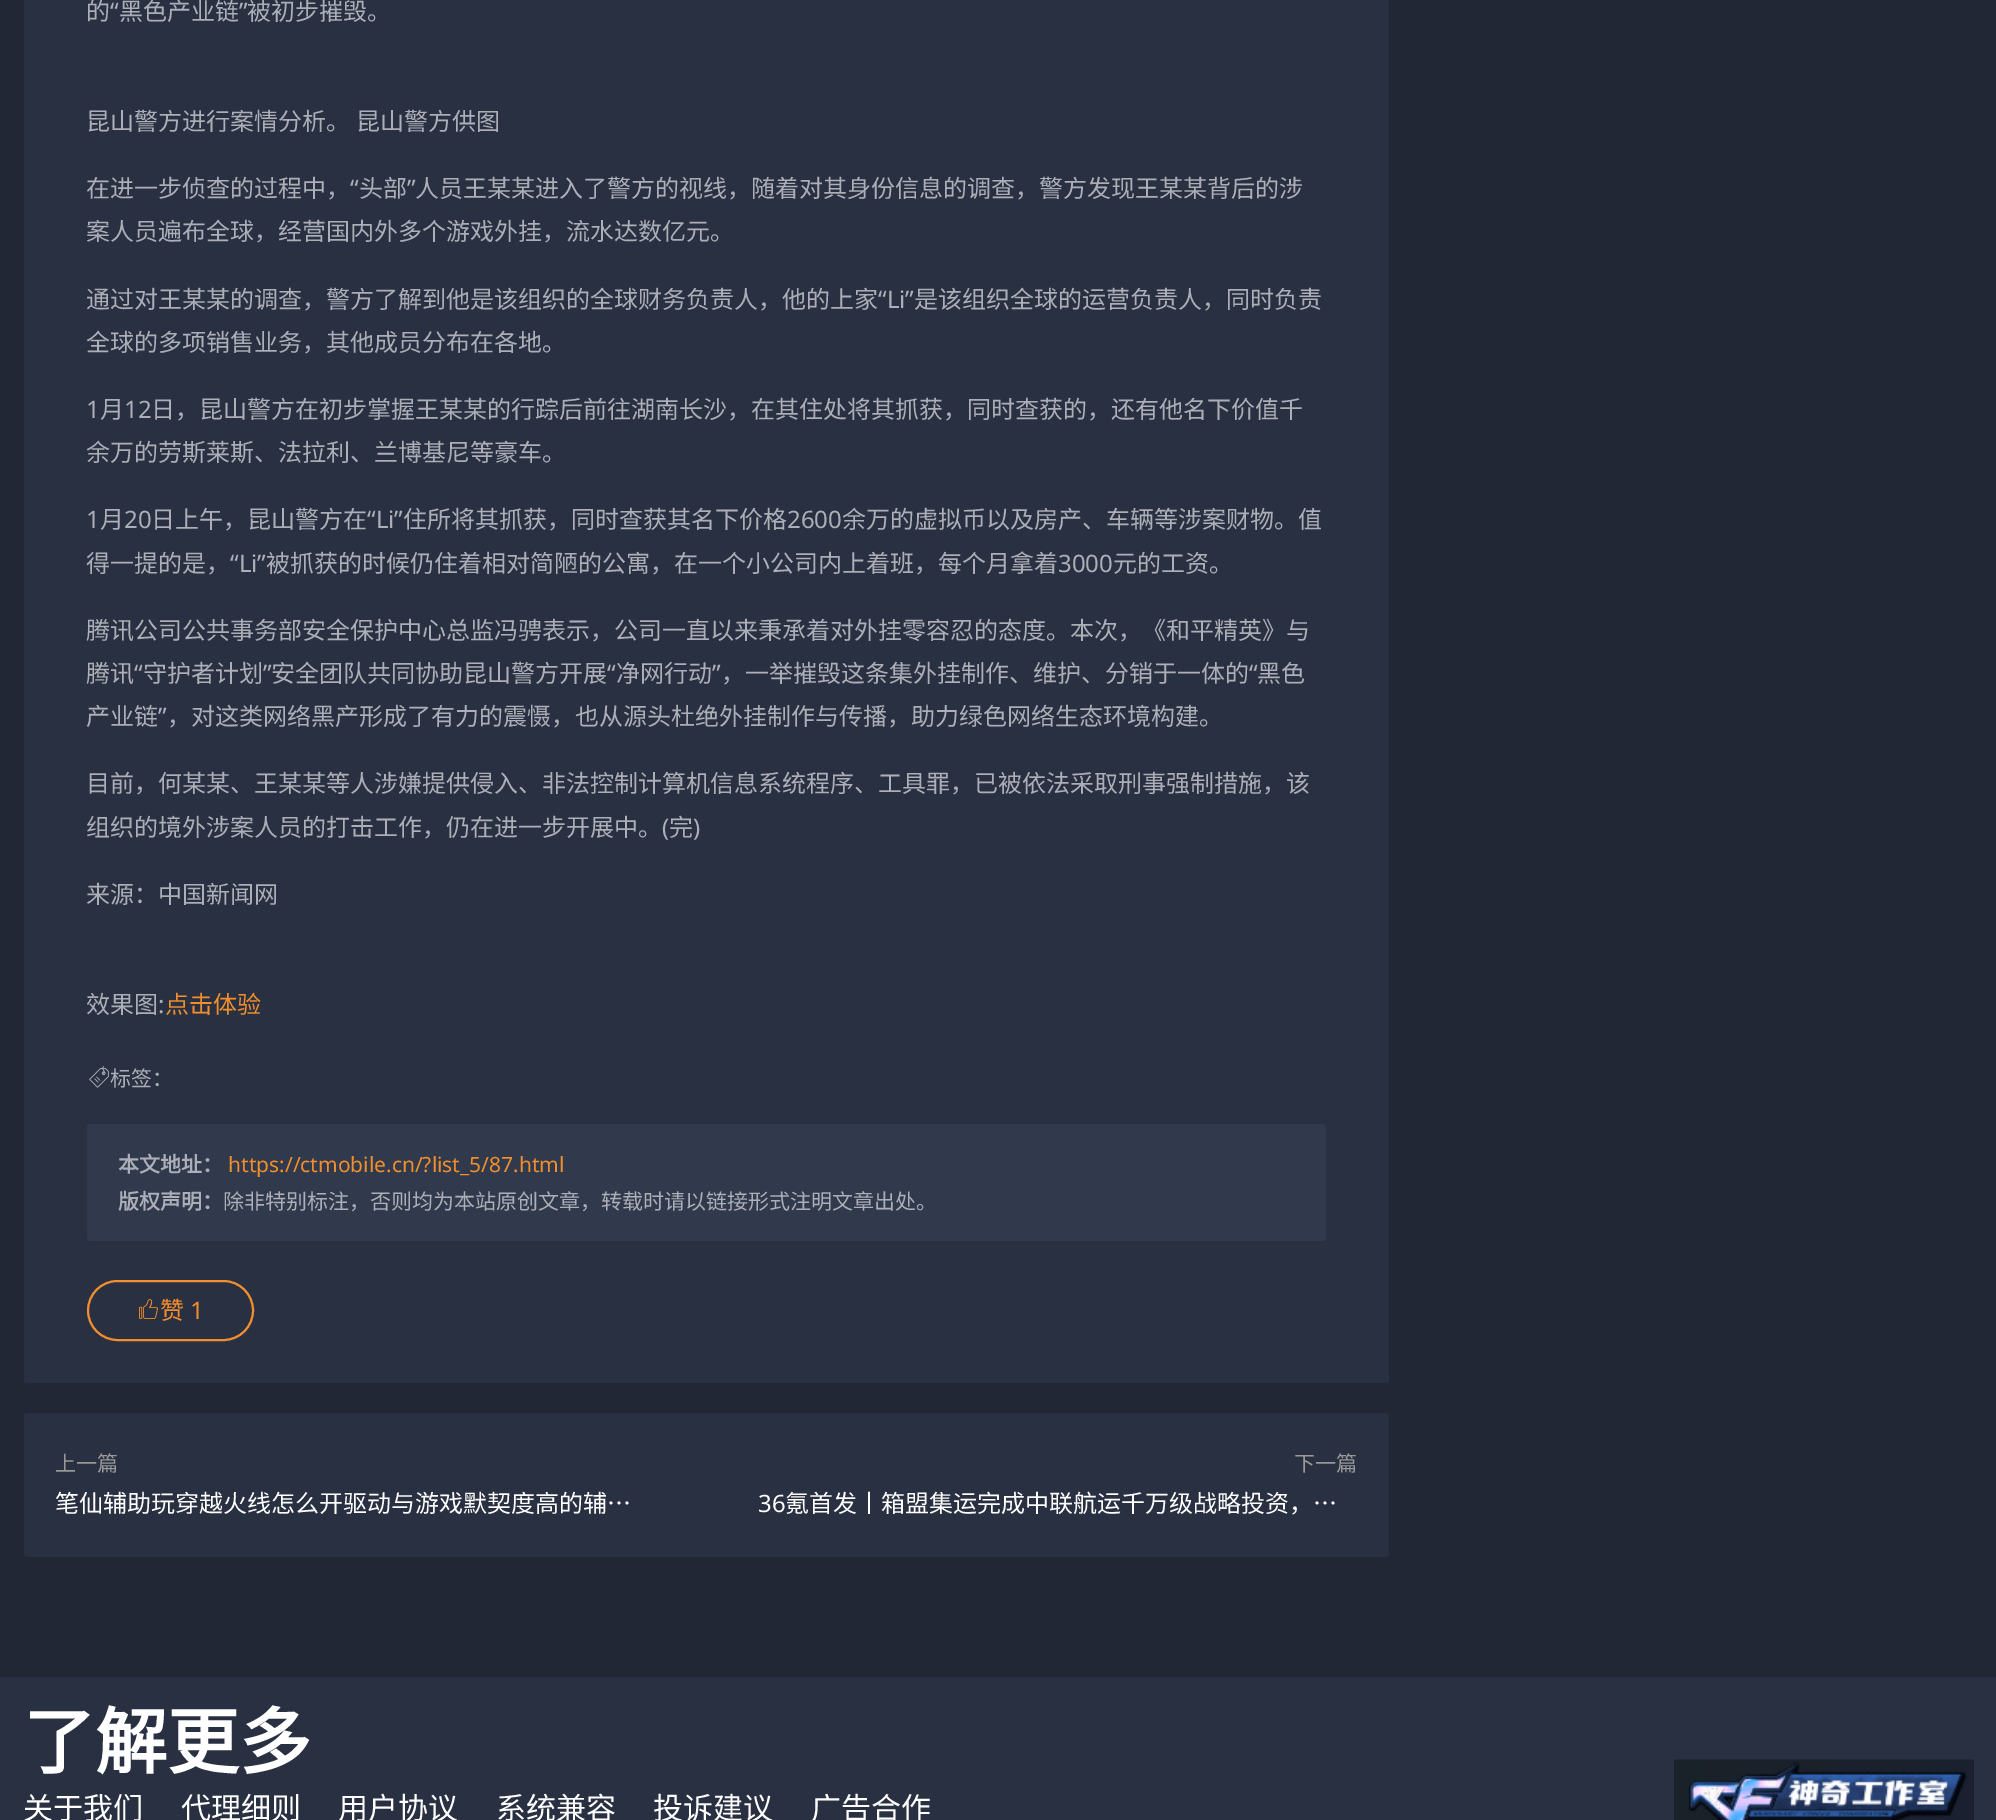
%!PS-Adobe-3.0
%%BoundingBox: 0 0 1996 1820
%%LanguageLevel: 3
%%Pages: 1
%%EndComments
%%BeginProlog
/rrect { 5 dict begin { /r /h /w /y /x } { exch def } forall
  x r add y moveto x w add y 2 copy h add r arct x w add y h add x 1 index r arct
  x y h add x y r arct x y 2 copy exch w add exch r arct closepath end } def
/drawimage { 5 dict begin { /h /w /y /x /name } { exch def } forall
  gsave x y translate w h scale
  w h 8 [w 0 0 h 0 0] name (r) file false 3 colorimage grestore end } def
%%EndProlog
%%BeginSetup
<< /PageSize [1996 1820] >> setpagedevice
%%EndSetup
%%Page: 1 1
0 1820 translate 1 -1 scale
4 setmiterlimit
0.129 0.153 0.208 setrgbcolor
0 0 1996 1820 rectfill
0.161 0.188 0.255 setrgbcolor
24 -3 1365 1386 3 rrect fill
(images/1.raw) 89 1066 20 22 drawimage
0.192 0.224 0.298 setrgbcolor
87 1124 1239 117 3 rrect fill
0.945 0.557 0.176 setrgbcolor
2 setlinewidth
88 1281 165 59 29.5 rrect stroke
(images/2.raw) 139 1299 19 20 drawimage
0.161 0.188 0.255 setrgbcolor
24 1413 1365 144 3 rrect fill
0 1677 1996 143 rectfill
(images/3.raw) 1674 1759 300 61 drawimage
/NotoSansCJKSC-Regular [24 0 0 -24 0 0] selectfont
0.675 0.686 0.722 setrgbcolor
86 20 moveto (的) show
/NotoSans-Regular [24 0 0 -24 0 0] selectfont
110 20 moveto (“) show
/NotoSansCJKSC-Regular [24 0 0 -24 0 0] selectfont
119 20 moveto (黑色产业链) show
/NotoSans-Regular [24 0 0 -24 0 0] selectfont
239 20 moveto (”) show
/NotoSansCJKSC-Regular [24 0 0 -24 0 0] selectfont
247 20 moveto (被初步摧毁。) show
86 130 moveto 1 0 32 (昆山警方进行案情分析。 昆山警方供图) widthshow
86 197 moveto (在进一步侦查的过程中，) show
/NotoSans-Regular [24 0 0 -24 0 0] selectfont
350 197 moveto (“) show
/NotoSansCJKSC-Regular [24 0 0 -24 0 0] selectfont
359 197 moveto (头部) show
/NotoSans-Regular [24 0 0 -24 0 0] selectfont
407 197 moveto (”) show
/NotoSansCJKSC-Regular [24 0 0 -24 0 0] selectfont
415 197 moveto (人员王某某进入了警方的视线，随着对其身份信息的调查，警方发现王某某背后的涉) show
86 240 moveto (案人员遍布全球，经营国内外多个游戏外挂，流水达数亿元。) show
86 308 moveto (通过对王某某的调查，警方了解到他是该组织的全球财务负责人，他的上家) show
/NotoSans-Regular [24 0 0 -24 0 0] selectfont
878 308 moveto (“Li”) show
/NotoSansCJKSC-Regular [24 0 0 -24 0 0] selectfont
914 308 moveto (是该组织全球的运营负责人，同时负责) show
86 351 moveto (全球的多项销售业务，其他成员分布在各地。) show
/NotoSans-Regular [24 0 0 -24 0 0] selectfont
86 418 moveto (1) show
/NotoSansCJKSC-Regular [24 0 0 -24 0 0] selectfont
100 418 moveto (月) show
/NotoSans-Regular [24 0 0 -24 0 0] selectfont
124 418 moveto (12) show
/NotoSansCJKSC-Regular [24 0 0 -24 0 0] selectfont
151 418 moveto (日，昆山警方在初步掌握王某某的行踪后前往湖南长沙，在其住处将其抓获，同时查获的，还有他名下价值千) show
86 461 moveto (余万的劳斯莱斯、法拉利、兰博基尼等豪车。) show
/NotoSans-Regular [24 0 0 -24 0 0] selectfont
86 528 moveto (1) show
/NotoSansCJKSC-Regular [24 0 0 -24 0 0] selectfont
100 528 moveto (月) show
/NotoSans-Regular [24 0 0 -24 0 0] selectfont
124 528 moveto (20) show
/NotoSansCJKSC-Regular [24 0 0 -24 0 0] selectfont
151 528 moveto (日上午，昆山警方在) show
/NotoSans-Regular [24 0 0 -24 0 0] selectfont
367 528 moveto (“Li”) show
/NotoSansCJKSC-Regular [24 0 0 -24 0 0] selectfont
403 528 moveto (住所将其抓获，同时查获其名下价格) show
/NotoSans-Regular [24 0 0 -24 0 0] selectfont
787 528 moveto (2600) show
/NotoSansCJKSC-Regular [24 0 0 -24 0 0] selectfont
842 528 moveto (余万的虚拟币以及房产、车辆等涉案财物。值) show
86 572 moveto (得一提的是，) show
/NotoSans-Regular [24 0 0 -24 0 0] selectfont
230 572 moveto (“Li”) show
/NotoSansCJKSC-Regular [24 0 0 -24 0 0] selectfont
266 572 moveto (被抓获的时候仍住着相对简陋的公寓，在一个小公司内上着班，每个月拿着) show
/NotoSans-Regular [24 0 0 -24 0 0] selectfont
1058 572 moveto (3000) show
/NotoSansCJKSC-Regular [24 0 0 -24 0 0] selectfont
1113 572 moveto (元的工资。) show
86 639 moveto (腾讯公司公共事务部安全保护中心总监冯骋表示，公司一直以来秉承着对外挂零容忍的态度。本次，《和平精英》与) show
86 682 moveto (腾讯) show
/NotoSans-Regular [24 0 0 -24 0 0] selectfont
134 682 moveto (“) show
/NotoSansCJKSC-Regular [24 0 0 -24 0 0] selectfont
143 682 moveto (守护者计划) show
/NotoSans-Regular [24 0 0 -24 0 0] selectfont
263 682 moveto (”) show
/NotoSansCJKSC-Regular [24 0 0 -24 0 0] selectfont
271 682 moveto (安全团队共同协助昆山警方开展) show
/NotoSans-Regular [24 0 0 -24 0 0] selectfont
607 682 moveto (“) show
/NotoSansCJKSC-Regular [24 0 0 -24 0 0] selectfont
616 682 moveto (净网行动) show
/NotoSans-Regular [24 0 0 -24 0 0] selectfont
712 682 moveto (”) show
/NotoSansCJKSC-Regular [24 0 0 -24 0 0] selectfont
721 682 moveto (，一举摧毁这条集外挂制作、维护、分销于一体的) show
/NotoSans-Regular [24 0 0 -24 0 0] selectfont
1249 682 moveto (“) show
/NotoSansCJKSC-Regular [24 0 0 -24 0 0] selectfont
1257 682 moveto (黑色) show
86 725 moveto (产业链) show
/NotoSans-Regular [24 0 0 -24 0 0] selectfont
158 725 moveto (”) show
/NotoSansCJKSC-Regular [24 0 0 -24 0 0] selectfont
167 725 moveto (，对这类网络黑产形成了有力的震慑，也从源头杜绝外挂制作与传播，助力绿色网络生态环境构建。) show
86 792 moveto (目前，何某某、王某某等人涉嫌提供侵入、非法控制计算机信息系统程序、工具罪，已被依法采取刑事强制措施，该) show
86 836 moveto (组织的境外涉案人员的打击工作，仍在进一步开展中。) show
/NotoSans-Regular [24 0 0 -24 0 0] selectfont
662 836 moveto (\() show
/NotoSansCJKSC-Regular [24 0 0 -24 0 0] selectfont
669 836 moveto (完) show
/NotoSans-Regular [24 0 0 -24 0 0] selectfont
693 836 moveto (\)) show
/NotoSansCJKSC-Regular [24 0 0 -24 0 0] selectfont
86 903 moveto (来源：中国新闻网) show
86 1013 moveto (效果图) show
/NotoSans-Regular [24 0 0 -24 0 0] selectfont
158 1013 moveto (:) show
/NotoSansCJKSC-Regular [24 0 0 -24 0 0] selectfont
0.945 0.557 0.176 setrgbcolor
165 1013 moveto (点击体验) show
/NotoSansCJKSC-Regular [21 0 0 -21 0 0] selectfont
0.675 0.686 0.722 setrgbcolor
110 1086 moveto (标签：) show
/NotoSansCJKSC-Bold [21 0 0 -21 0 0] selectfont
118 1172 moveto (本文地址：) show
/NotoSans-Regular [21 0 0 -21 0 0] selectfont
0.945 0.557 0.176 setrgbcolor
228 1172 moveto (https://ctmobile.cn/?list_5/87.html) show
/NotoSansCJKSC-Bold [21 0 0 -21 0 0] selectfont
0.675 0.686 0.722 setrgbcolor
118 1209 moveto (版权声明：) show
/NotoSansCJKSC-Regular [21 0 0 -21 0 0] selectfont
223 1209 moveto (除非特别标注，否则均为本站原创文章，转载时请以链接形式注明文章出处。) show
/NotoSansCJKSC-Regular [24 0 0 -24 0 0] selectfont
0.945 0.557 0.176 setrgbcolor
160 1319 moveto (赞) show
/NotoSans-Regular [24 0 0 -24 0 0] selectfont
190 1319 moveto (1) show
/NotoSansCJKSC-Regular [21 0 0 -21 0 0] selectfont
0.6 setgray
55 1471 moveto (上一篇) show
/NotoSansCJKSC-Regular [24 0 0 -24 0 0] selectfont
1 setgray
55 1512 moveto (笔仙辅助玩穿越火线怎么开驱动与游戏默契度高的辅…) show
/NotoSansCJKSC-Regular [21 0 0 -21 0 0] selectfont
0.6 setgray
1294 1471 moveto (下一篇) show
/NotoSans-Regular [24 0 0 -24 0 0] selectfont
1 setgray
758 1512 moveto (36) show
/NotoSansCJKSC-Regular [24 0 0 -24 0 0] selectfont
785 1512 moveto (氪首发丨箱盟集运完成中联航运千万级战略投资，…) show
/NotoSansCJKSC-Bold [72 0 0 -72 0 0] selectfont
23 1768 moveto (了解更多) show
/NotoSansCJKSC-Regular [30 0 0 -30 0 0] selectfont
23 1819 moveto (关于我们) show
181 1819 moveto (代理细则) show
338 1819 moveto (用户协议) show
496 1819 moveto (系统兼容) show
653 1819 moveto (投诉建议) show
811 1819 moveto (广告合作) show
showpage
%%EOF
